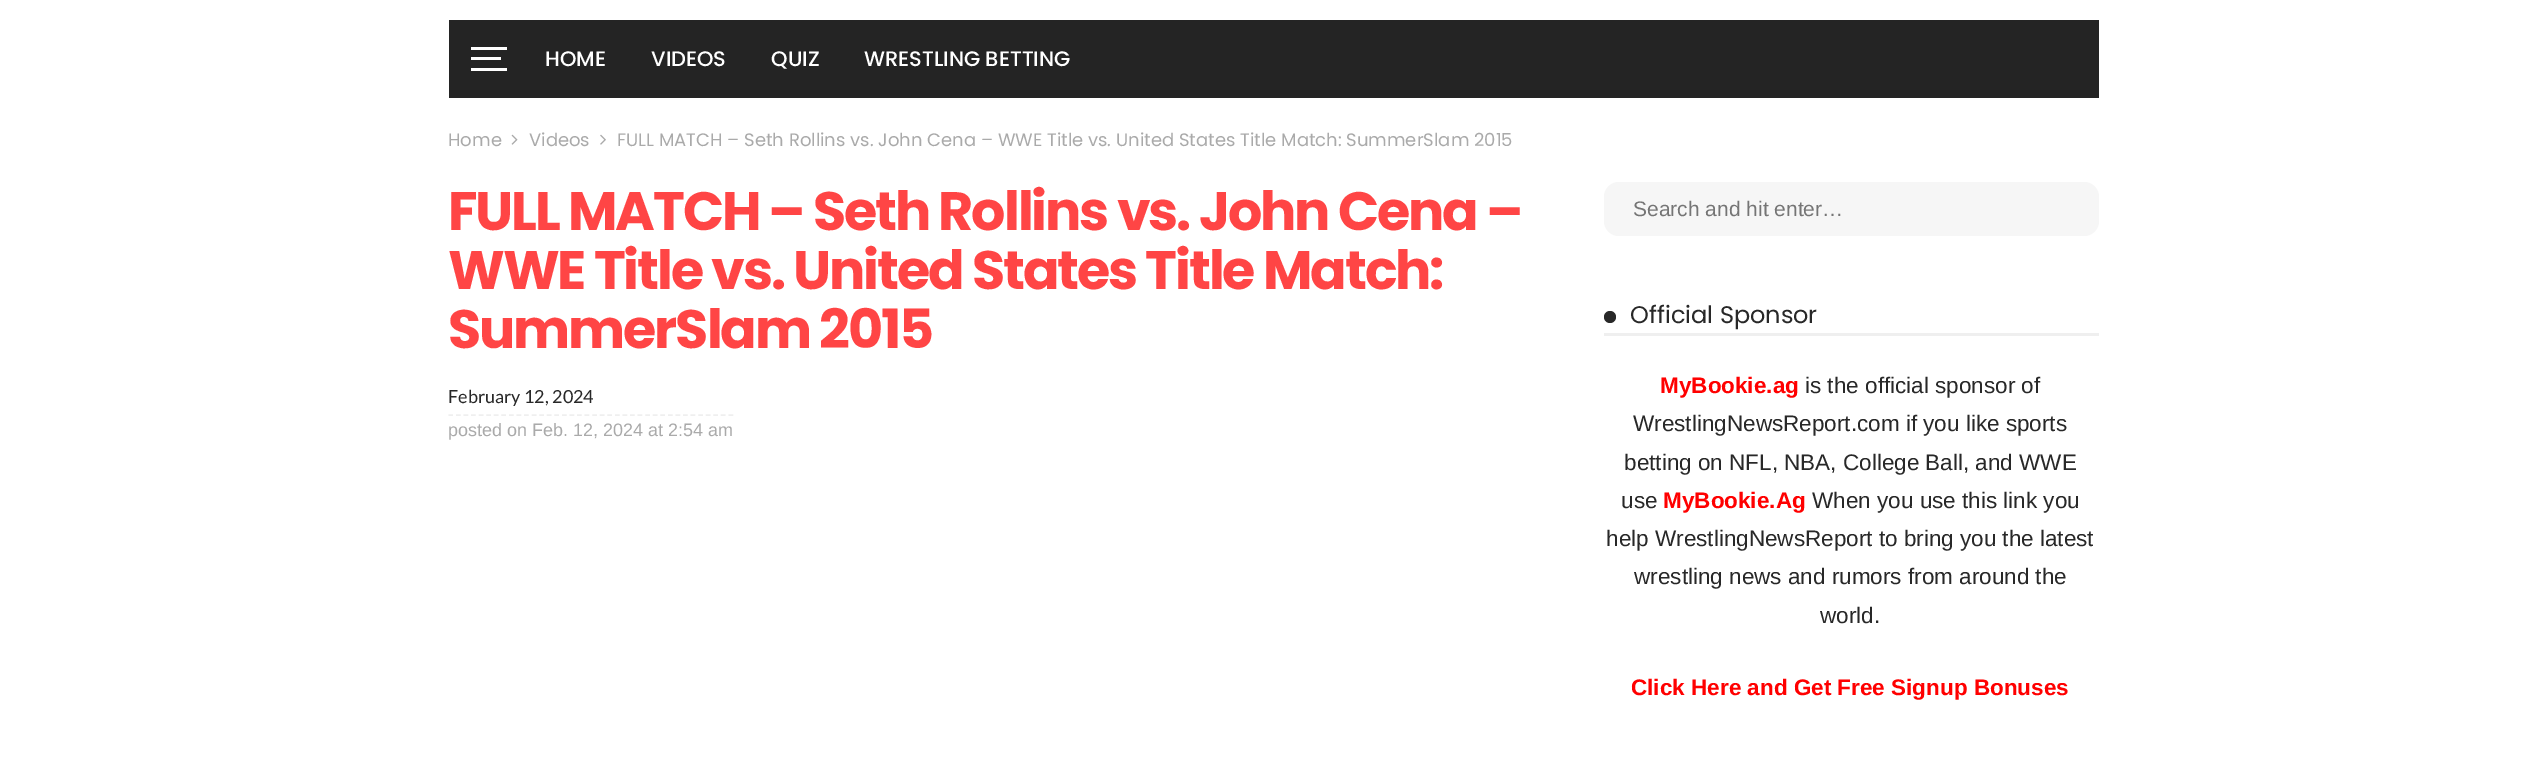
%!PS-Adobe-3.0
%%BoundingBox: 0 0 2545 768
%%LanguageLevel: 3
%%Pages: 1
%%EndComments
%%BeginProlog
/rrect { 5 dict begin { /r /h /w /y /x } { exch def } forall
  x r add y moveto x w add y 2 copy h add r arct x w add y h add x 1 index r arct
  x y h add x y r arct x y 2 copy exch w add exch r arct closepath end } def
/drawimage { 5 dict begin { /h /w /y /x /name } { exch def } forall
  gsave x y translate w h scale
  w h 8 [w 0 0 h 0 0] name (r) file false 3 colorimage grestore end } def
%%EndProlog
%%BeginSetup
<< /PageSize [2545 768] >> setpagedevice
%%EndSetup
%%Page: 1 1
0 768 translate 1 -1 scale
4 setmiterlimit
1 setgray
0 0 2545 768 rectfill
0.141 setgray
449 20 1650 78 rectfill
1 setgray
471 57 30 3 rectfill
471 47 36 3 rectfill
471 68 36 3 rectfill
(images/1.raw) 511 134 7 11 drawimage
(images/2.raw) 600 134 6 11 drawimage
0.937 setgray
1.5 setlinewidth
[4.5 3.07] 0 setdash
newpath 448.5 415 moveto 733.5 415 lineto stroke
0.965 setgray
1604 182 495 54 15 rrect fill
0.937 setgray
1604 333 495 3 rectfill
0.157 setgray
newpath 1610 317 6 0 360 arc closepath fill
/Poppins-Medium [21 0 0 -21 0 0] selectfont
1 setgray
545 66 moveto (HOME) show
651 66 moveto (VIDEOS) show
771 66 moveto (QUIZ) show
864 66 moveto (WRESTLING BETTING) show
/Poppins-Regular [18 0 0 -18 0 0] selectfont
0.667 setgray
448 146 moveto (Home) show
529 146 moveto (Videos) show
617 146 moveto (FULL MATCH – Seth Rollins vs. John Cena – WWE Title vs. United States Title Match: SummerSlam 2015) show
/Poppins-Bold [54 0 0 -54 0 0] selectfont
1 0.271 0.271 setrgbcolor
448 230 moveto -2.15 0 (FULL MATCH – Seth Rollins vs. John Cena –) ashow
448 289 moveto -2.15 0 (WWE Title vs. United States Title Match:) ashow
448 348 moveto -2.15 0 (SummerSlam 2015) ashow
/Lato-Regular [18 0 0 -18 0 0] selectfont
0.157 setgray
448 403 moveto (February 12, 2024) show
/LiberationSans-Regular [18 0 0 -18 0 0] selectfont
0.667 setgray
448 436 moveto (posted on Feb. 12, 2024 at 2:54 am) show
/LiberationSans-Regular [21 0 0 -21 0 0] selectfont
0.459 setgray
1633 216 moveto (Search and hit enter…) show
/Poppins-Regular [24 0 0 -24 0 0] selectfont
0.157 setgray
1630 323 moveto (Official Sponsor) show
/LiberationSans-Bold [22.5 0 0 -22.5 0 0] selectfont
1 0 0 setrgbcolor
1660 393 moveto (MyBookie.ag) show
/LiberationSans-Regular [22.5 0 0 -22.5 0 0] selectfont
0.157 setgray
1805 393 moveto (is the official sponsor of) show
1633 431 moveto (WrestlingNewsReport.com if you like sports) show
1624 470 moveto (betting on NFL, NBA, College Ball, and WWE) show
1621 508 moveto (use) show
/LiberationSans-Bold [22.5 0 0 -22.5 0 0] selectfont
1 0 0 setrgbcolor
1663 508 moveto (MyBookie.Ag) show
/LiberationSans-Regular [22.5 0 0 -22.5 0 0] selectfont
0.157 setgray
1812 508 moveto (When you use this link you) show
1606 546 moveto (help WrestlingNewsReport to bring you the latest) show
1634 584 moveto (wrestling news and rumors from around the) show
1820 623 moveto (world.) show
/LiberationSans-Bold [22.5 0 0 -22.5 0 0] selectfont
1 0 0 setrgbcolor
1631 695 moveto (Click Here and Get Free Signup Bonuses) show
showpage
%%EOF
